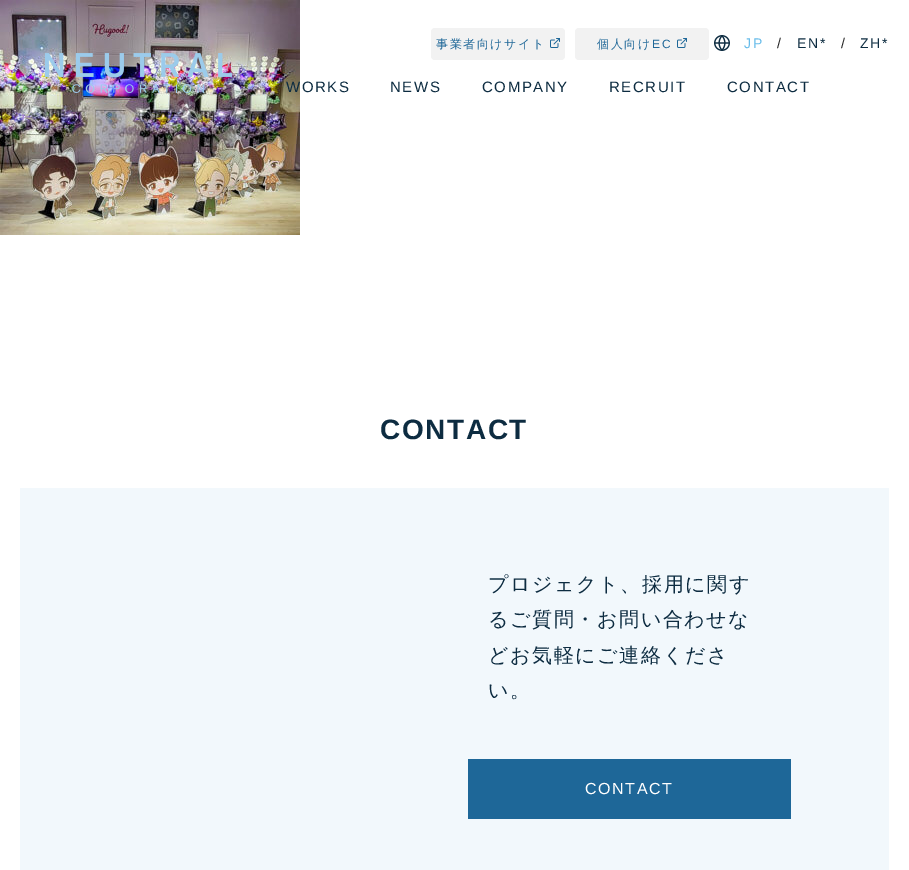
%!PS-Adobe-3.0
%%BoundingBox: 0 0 909 870
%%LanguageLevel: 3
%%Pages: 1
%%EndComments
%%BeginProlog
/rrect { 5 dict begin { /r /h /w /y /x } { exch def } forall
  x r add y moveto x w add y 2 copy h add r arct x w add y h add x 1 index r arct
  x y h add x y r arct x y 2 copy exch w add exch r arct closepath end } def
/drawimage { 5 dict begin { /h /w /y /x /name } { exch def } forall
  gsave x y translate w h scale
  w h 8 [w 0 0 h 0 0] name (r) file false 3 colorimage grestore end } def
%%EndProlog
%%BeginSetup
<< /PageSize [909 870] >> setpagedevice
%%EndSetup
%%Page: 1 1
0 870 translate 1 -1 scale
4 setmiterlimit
1 setgray
0 0 909 870 rectfill
(images/1.raw) 0 0 300 235 drawimage
(images/2.raw) 45 53 187 40 drawimage
0.949 setgray
431 28 134 32 4 rrect fill
(images/3.raw) 550 38 10 10 drawimage
575 28 134 32 4 rrect fill
(images/3.raw) 677 38 10 10 drawimage
(images/4.raw) 714 35 16 16 drawimage
0.949 0.973 0.988 setrgbcolor
20 488 869 382 rectfill
0.118 0.404 0.596 setrgbcolor
468 759 323 60 rectfill
/WenQuanYiZenHei-Medium [12 0 0 -12 0 0] selectfont
436 48 moveto 1.6 0 (事業者向けサイト) ashow
597 48 moveto 1.6 0 (個人向け) ashow
/LiberationSans-Regular [12 0 0 -12 0 0] selectfont
652 48 moveto 1.6 0 (EC) ashow
/LiberationSans-Regular [14 0 0 -14 0 0] selectfont
0.404 0.737 0.918 setrgbcolor
744 48 moveto 1.6 0 (JP) ashow
0.133 setgray
777 48 moveto 1.6 0 (/) ashow
0.051 0.173 0.255 setrgbcolor
797 48 moveto 1.6 0 (EN*) ashow
0.133 setgray
841 48 moveto 1.6 0 (/) ashow
0.051 0.173 0.255 setrgbcolor
860 48 moveto 1.6 0 (ZH*) ashow
/LiberationSans-Regular [15 0 0 -15 0 0] selectfont
286 92 moveto 1.6 0 (WORKS) ashow
390 92 moveto 1.6 0 (NEWS) ashow
482 92 moveto 1.6 0 (COMPANY) ashow
609 92 moveto 1.6 0 (RECRUIT) ashow
727 92 moveto 1.6 0 (CONTACT) ashow
/LiberationSans-Bold [28 0 0 -28 0 0] selectfont
380 439 moveto 1.6 0 (CONTACT) ashow
/WenQuanYiZenHei-Medium [20 0 0 -20 0 0] selectfont
488 591 moveto 1.6 0 (プロジェクト、採用に関す) ashow
488 626 moveto 1.6 0 (るご質問・お問い合わせな) ashow
488 662 moveto 1.6 0 (どお気軽にご連絡くださ) ashow
488 697 moveto 1.6 0 (い。) ashow
/LiberationSans-Regular [16 0 0 -16 0 0] selectfont
1 setgray
585 794 moveto 1.6 0 (CONTACT) ashow
showpage
%%EOF
